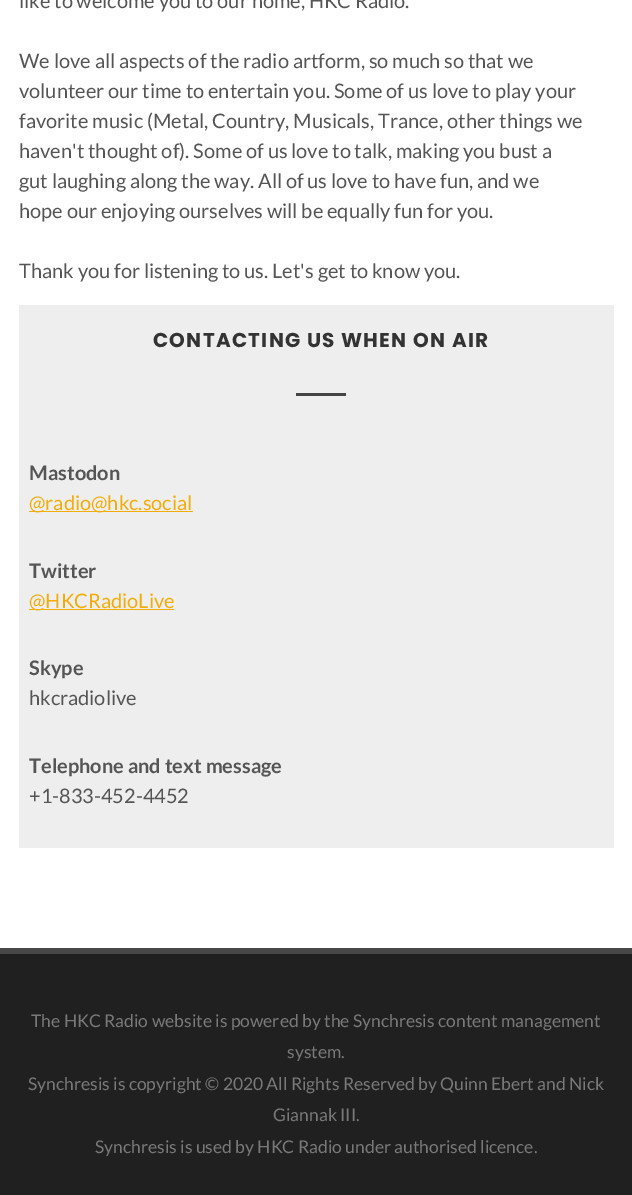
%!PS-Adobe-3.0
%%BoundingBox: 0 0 632 1195
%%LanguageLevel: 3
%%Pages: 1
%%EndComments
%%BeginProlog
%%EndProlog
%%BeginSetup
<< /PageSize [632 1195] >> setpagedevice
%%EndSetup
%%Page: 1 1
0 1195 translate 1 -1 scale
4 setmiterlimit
1 setgray
0 0 632 1195 rectfill
0.933 setgray
19 305 595 543 rectfill
0.267 setgray
296 393 50 3 rectfill
0.957 0.678 0.027 setrgbcolor
29 511 164 1 rectfill
29 609 145 1 rectfill
0.282 setgray
0 948 632 6 rectfill
0.125 setgray
0 954 632 241 rectfill
/Lato-Regular [20 0 0 -20 0 0] selectfont
0.333 setgray
19 8 moveto (like to welcome you to our home, HKC Radio.) show
19 68 moveto (We love all aspects of the radio artform, so much so that we) show
19 98 moveto (volunteer our time to entertain you. Some of us love to play your) show
19 128 moveto (favorite music \(Metal, Country, Musicals, Trance, other things we) show
19 158 moveto (haven't thought of\). Some of us love to talk, making you bust a) show
19 188 moveto (gut laughing along the way. All of us love to have fun, and we) show
19 218 moveto (hope our enjoying ourselves will be equally fun for you.) show
19 278 moveto (Thank you for listening to us. Let's get to know you.) show
/Poppins-Bold [20 0 0 -20 0 0] selectfont
0.2 setgray
153 347 moveto 1.25 0 (CONTACTING US WHEN ON AIR) ashow
/Lato-Bold [20 0 0 -20 0 0] selectfont
0.333 setgray
29 480 moveto (Mastodon) show
/Lato-Regular [20 0 0 -20 0 0] selectfont
0.957 0.678 0.027 setrgbcolor
29 510 moveto (@radio@hkc.social) show
/Lato-Bold [20 0 0 -20 0 0] selectfont
0.333 setgray
29 578 moveto (Twitter) show
/Lato-Regular [20 0 0 -20 0 0] selectfont
0.957 0.678 0.027 setrgbcolor
29 608 moveto (@HKCRadioLive) show
/Lato-Bold [20 0 0 -20 0 0] selectfont
0.333 setgray
29 675 moveto (Skype) show
/Lato-Regular [20 0 0 -20 0 0] selectfont
29 705 moveto (hkcradiolive) show
/Lato-Bold [20 0 0 -20 0 0] selectfont
29 773 moveto (Telephone and text message) show
/Lato-Regular [20 0 0 -20 0 0] selectfont
29 803 moveto (+1-833-452-4452) show
/Lato-Regular [17.5 0 0 -17.5 0 0] selectfont
0.475 setgray
31 1027 moveto (The HKC Radio website is powered by the Synchresis content management) show
287 1058 moveto (system.) show
28 1090 moveto (Synchresis is copyright © 2020 All Rights Reserved by Quinn Ebert and Nick) show
273 1121 moveto (Giannak III.) show
95 1153 moveto (Synchresis is used by HKC Radio under authorised licence.) show
showpage
%%EOF
